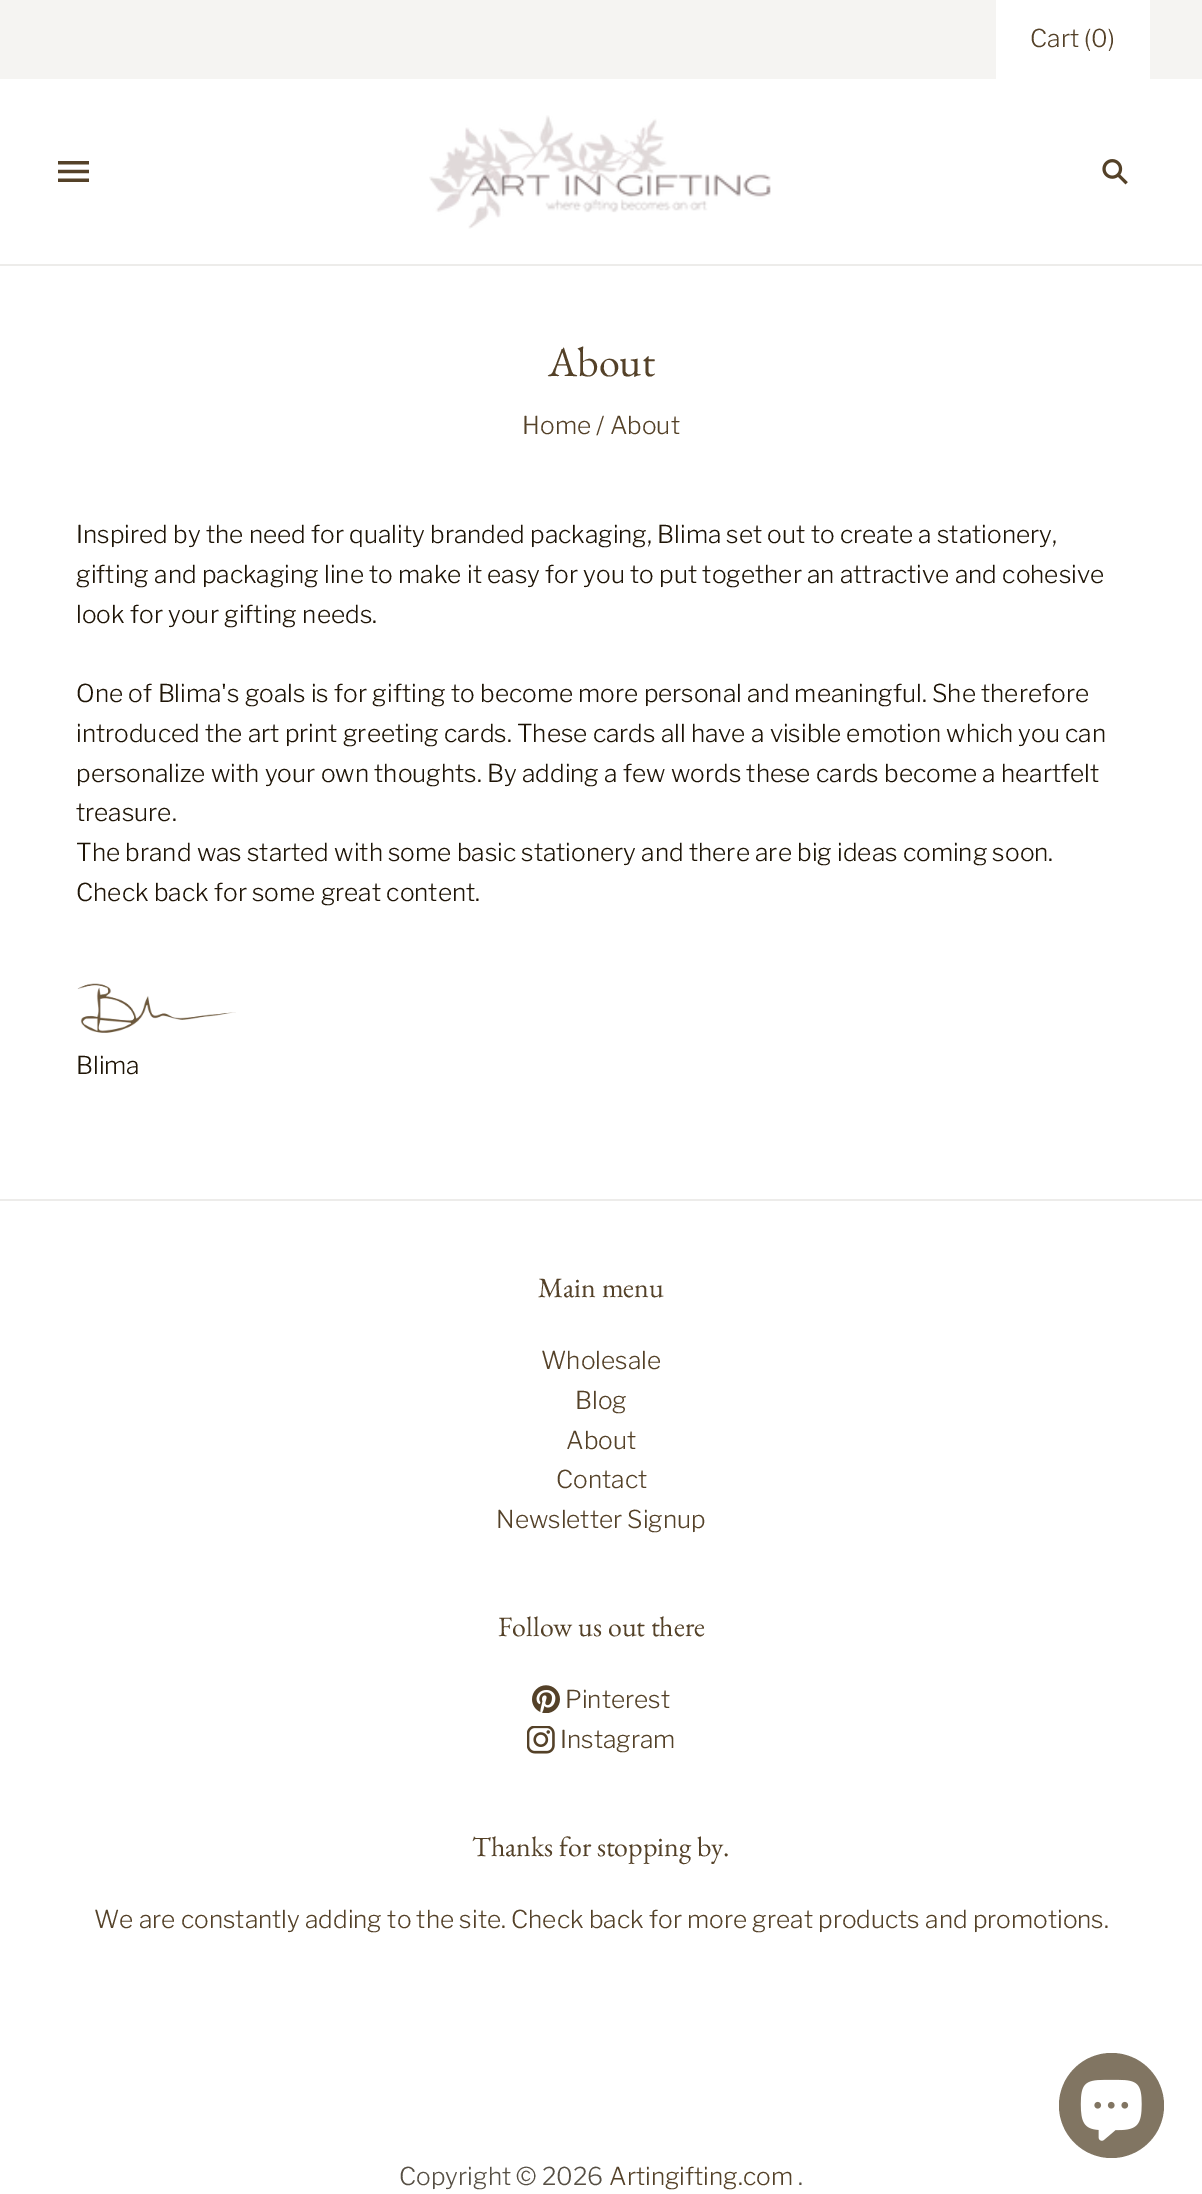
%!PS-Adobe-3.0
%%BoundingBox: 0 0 1202 2194
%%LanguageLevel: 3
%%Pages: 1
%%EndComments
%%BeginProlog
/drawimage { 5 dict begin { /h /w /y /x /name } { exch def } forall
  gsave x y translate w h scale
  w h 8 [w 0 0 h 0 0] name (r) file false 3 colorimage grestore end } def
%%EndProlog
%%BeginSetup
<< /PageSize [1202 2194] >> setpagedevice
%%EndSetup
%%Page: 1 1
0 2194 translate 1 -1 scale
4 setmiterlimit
1 setgray
0 0 1202 2194 rectfill
0.929 0.925 0.918 setrgbcolor
0 264 1202 2 rectfill
0.961 0.957 0.949 setrgbcolor
0 0 1202 79 rectfill
1 setgray
996 0 154 79 rectfill
(images/1.raw) 58 161 31 21 drawimage
(images/2.raw) 429 115 342 114 drawimage
(images/3.raw) 1102 159 26 26 drawimage
(images/4.raw) 77 983 159 50 drawimage
0.929 0.925 0.918 setrgbcolor
0 1199 1202 2 rectfill
(images/5.raw) 532 1685 28 28 drawimage
(images/6.raw) 527 1726 28 28 drawimage
0.506 0.459 0.384 setrgbcolor
newpath 1111.5 2105.5 52.5 0 360 arc closepath fill
(images/7.raw) 1080 2079 62 62 drawimage
/LibreFranklin-Light [24.5 0 0 -24.5 0 0] selectfont
0.329 0.255 0.157 setrgbcolor
1030 47 moveto (Cart \(0\)) show
/EBGaramond-Regular [42 0 0 -42 0 0] selectfont
548 376 moveto (About) show
/LibreFranklin-Light [24.5 0 0 -24.5 0 0] selectfont
522 434 moveto (Home / About) show
0.118 0.078 0.024 setrgbcolor
76 543 moveto (Inspired by the need for quality branded packaging, Blima set out to create a stationery,) show
76 583 moveto (gifting and packaging line to make it easy for you to put together an attractive and cohesive) show
76 623 moveto (look for your gifting needs.) show
76 702 moveto (One of Blima's goals is for gifting to become more personal and meaningful. She therefore) show
76 742 moveto (introduced the art print greeting cards. These cards all have a visible emotion which you can) show
76 782 moveto (personalize with your own thoughts. By adding a few words these cards become a heartfelt) show
76 821 moveto (treasure.) show
76 861 moveto (The brand was started with some basic stationery and there are big ideas coming soon.) show
76 901 moveto (Check back for some great content.) show
76 1074 moveto (Blima) show
/EBGaramond-Regular [28 0 0 -28 0 0] selectfont
0.329 0.255 0.157 setrgbcolor
538 1297 moveto (Main menu) show
/LibreFranklin-Light [24.5 0 0 -24.5 0 0] selectfont
541 1369 moveto (Wholesale) show
575 1409 moveto (Blog) show
566 1449 moveto (About) show
556 1488 moveto (Contact) show
496 1528 moveto (Newsletter Signup) show
/EBGaramond-Regular [28 0 0 -28 0 0] selectfont
498 1636 moveto (Follow us out there) show
/LibreFranklin-Light [24.5 0 0 -24.5 0 0] selectfont
565 1708 moveto (Pinterest) show
560 1748 moveto (Instagram) show
/EBGaramond-Regular [28 0 0 -28 0 0] selectfont
472 1856 moveto (Thanks for stopping by.) show
/LibreFranklin-Light [24.5 0 0 -24.5 0 0] selectfont
94 1928 moveto (We are constantly adding to the site. Check back for more great products and promotions.) show
0.337 0.31 0.267 setrgbcolor
399 2185 moveto (Copyright © 2026) show
0.329 0.255 0.157 setrgbcolor
609 2185 moveto (Artingifting.com) show
0.337 0.31 0.267 setrgbcolor
798 2185 moveto (.) show
showpage
%%EOF
